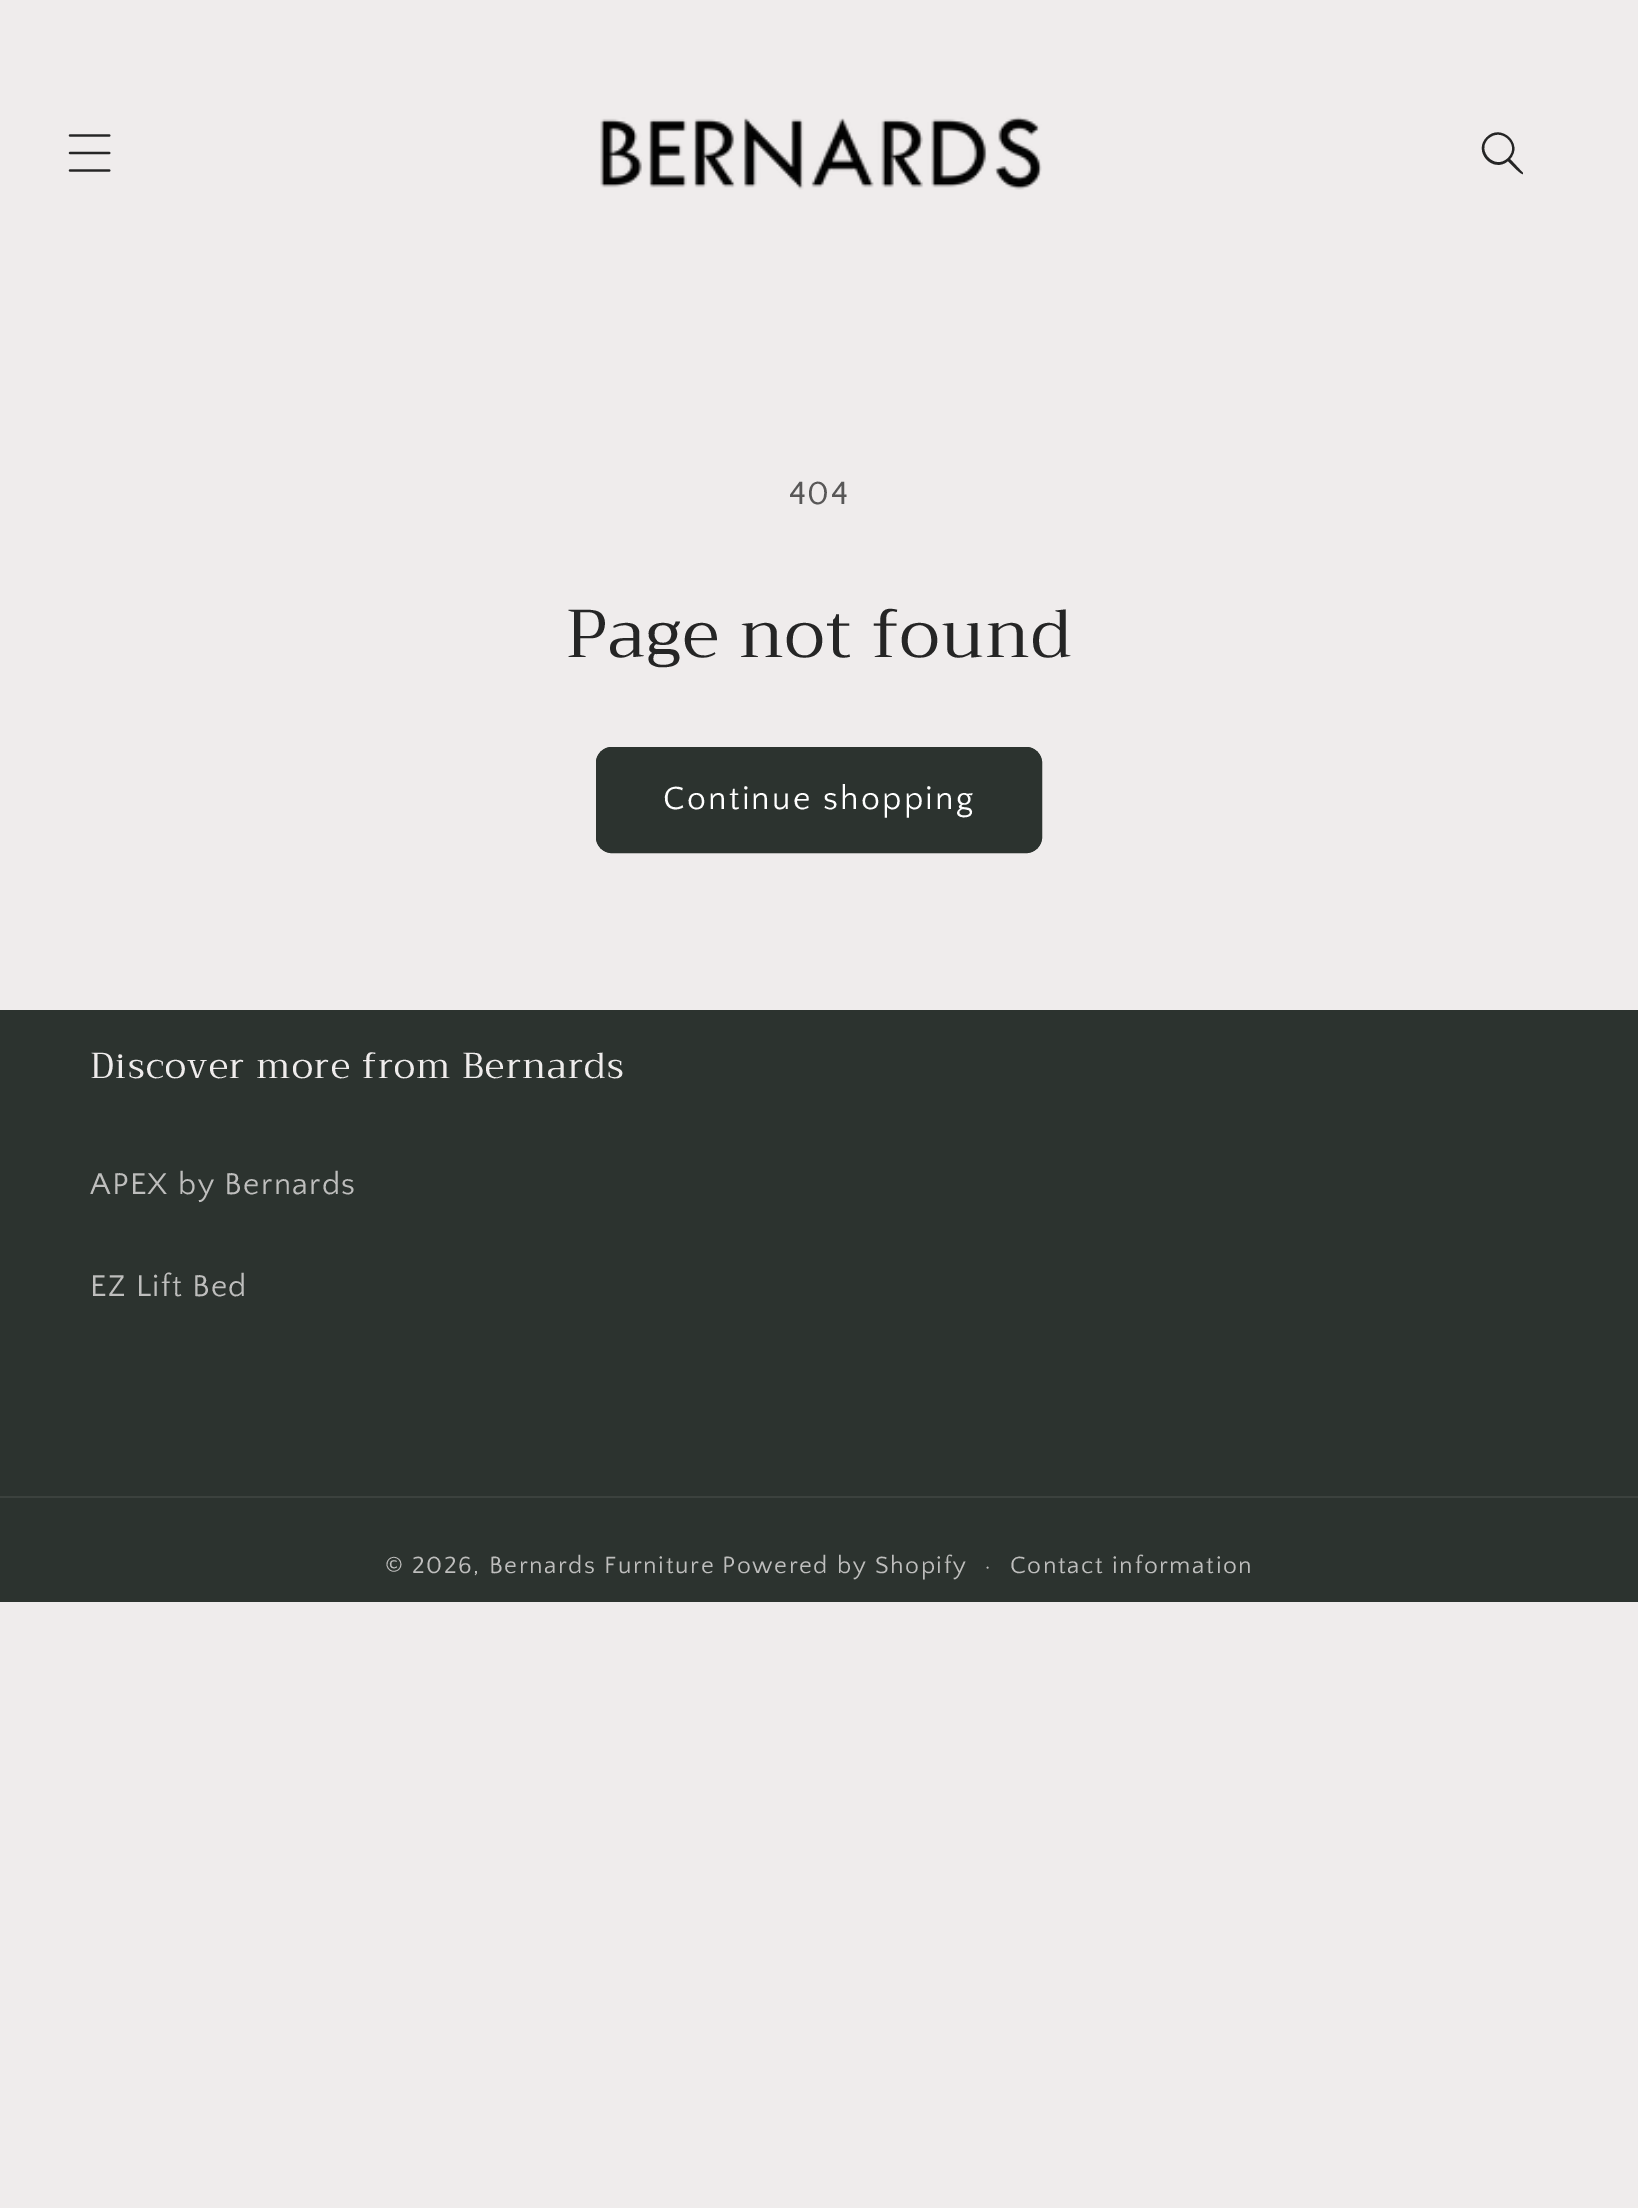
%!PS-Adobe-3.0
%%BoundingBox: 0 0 1638 2208
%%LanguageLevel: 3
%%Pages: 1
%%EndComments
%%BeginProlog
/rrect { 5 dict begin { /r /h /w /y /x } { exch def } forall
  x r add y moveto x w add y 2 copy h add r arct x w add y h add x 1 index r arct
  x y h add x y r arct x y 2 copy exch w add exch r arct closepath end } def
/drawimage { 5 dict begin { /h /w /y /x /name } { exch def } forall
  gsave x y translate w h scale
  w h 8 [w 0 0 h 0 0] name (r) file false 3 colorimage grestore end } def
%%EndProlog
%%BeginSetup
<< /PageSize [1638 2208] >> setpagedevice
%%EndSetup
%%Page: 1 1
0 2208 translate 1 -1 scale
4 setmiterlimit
0.937 0.925 0.925 setrgbcolor
0 0 1638 2208 rectfill
(images/1.raw) 68 134 43 38 drawimage
(images/2.raw) 600 116 442 74 drawimage
0.145 setgray
newpath 1508 158 moveto 1495 171 1476 151 1488 139 curveto 1501 126 1521 145 1508 158 curveto closepath 1508 161 moveto 1493 174 1472 151 1487 137 curveto 1501 123 1524 144 1510 159 curveto 1523 173 lineto 1523 174 lineto 1521 175 1510 163 1508 161 curveto closepath eofill
0.173 0.2 0.184 setrgbcolor
596 747 446 106 16 rrect fill
2 setlinewidth
597 748 444 104 15 rrect stroke
0 1010 1638 592 rectfill
0.235 0.259 0.243 setrgbcolor
0 1496 1638 2 rectfill
/QuattrocentoSans-Regular [33.75 0 0 -33.75 0 0] selectfont
0.345 0.341 0.341 setrgbcolor
789 504 moveto 1.35 0 (404) ashow
/Trirong-Regular [67.5 0 0 -67.5 0 0] selectfont
0.145 setgray
566 657 moveto 1.35 0 (Page not found) ashow
/QuattrocentoSans-Regular [33.75 0 0 -33.75 0 0] selectfont
1 setgray
663 809 moveto 2.25 0 (Continue shopping) ashow
/Trirong-Regular [36 0 0 -36 0 0] selectfont
0.937 0.925 0.925 setrgbcolor
90 1078 moveto 1.35 0 (Discover more from Bernards) ashow
/QuattrocentoSans-Regular [31.5 0 0 -31.5 0 0] selectfont
0.745 0.745 0.741 setrgbcolor
90 1194 moveto 1.35 0 (APEX by Bernards) ashow
90 1296 moveto 1.35 0 (EZ Lift Bed) ashow
/QuattrocentoSans-Regular [24.75 0 0 -24.75 0 0] selectfont
385 1573 moveto 1.6 0 (© 2026, Bernards Furniture) ashow
722 1573 moveto 1.6 0 (Powered by Shopify) ashow
/QuattrocentoSans-Regular [22 0 0 -22 0 0] selectfont
985 1573 moveto 1.6 0 (·) ashow
/QuattrocentoSans-Regular [24.75 0 0 -24.75 0 0] selectfont
1010 1573 moveto 1.6 0 (Contact information) ashow
showpage
%%EOF
